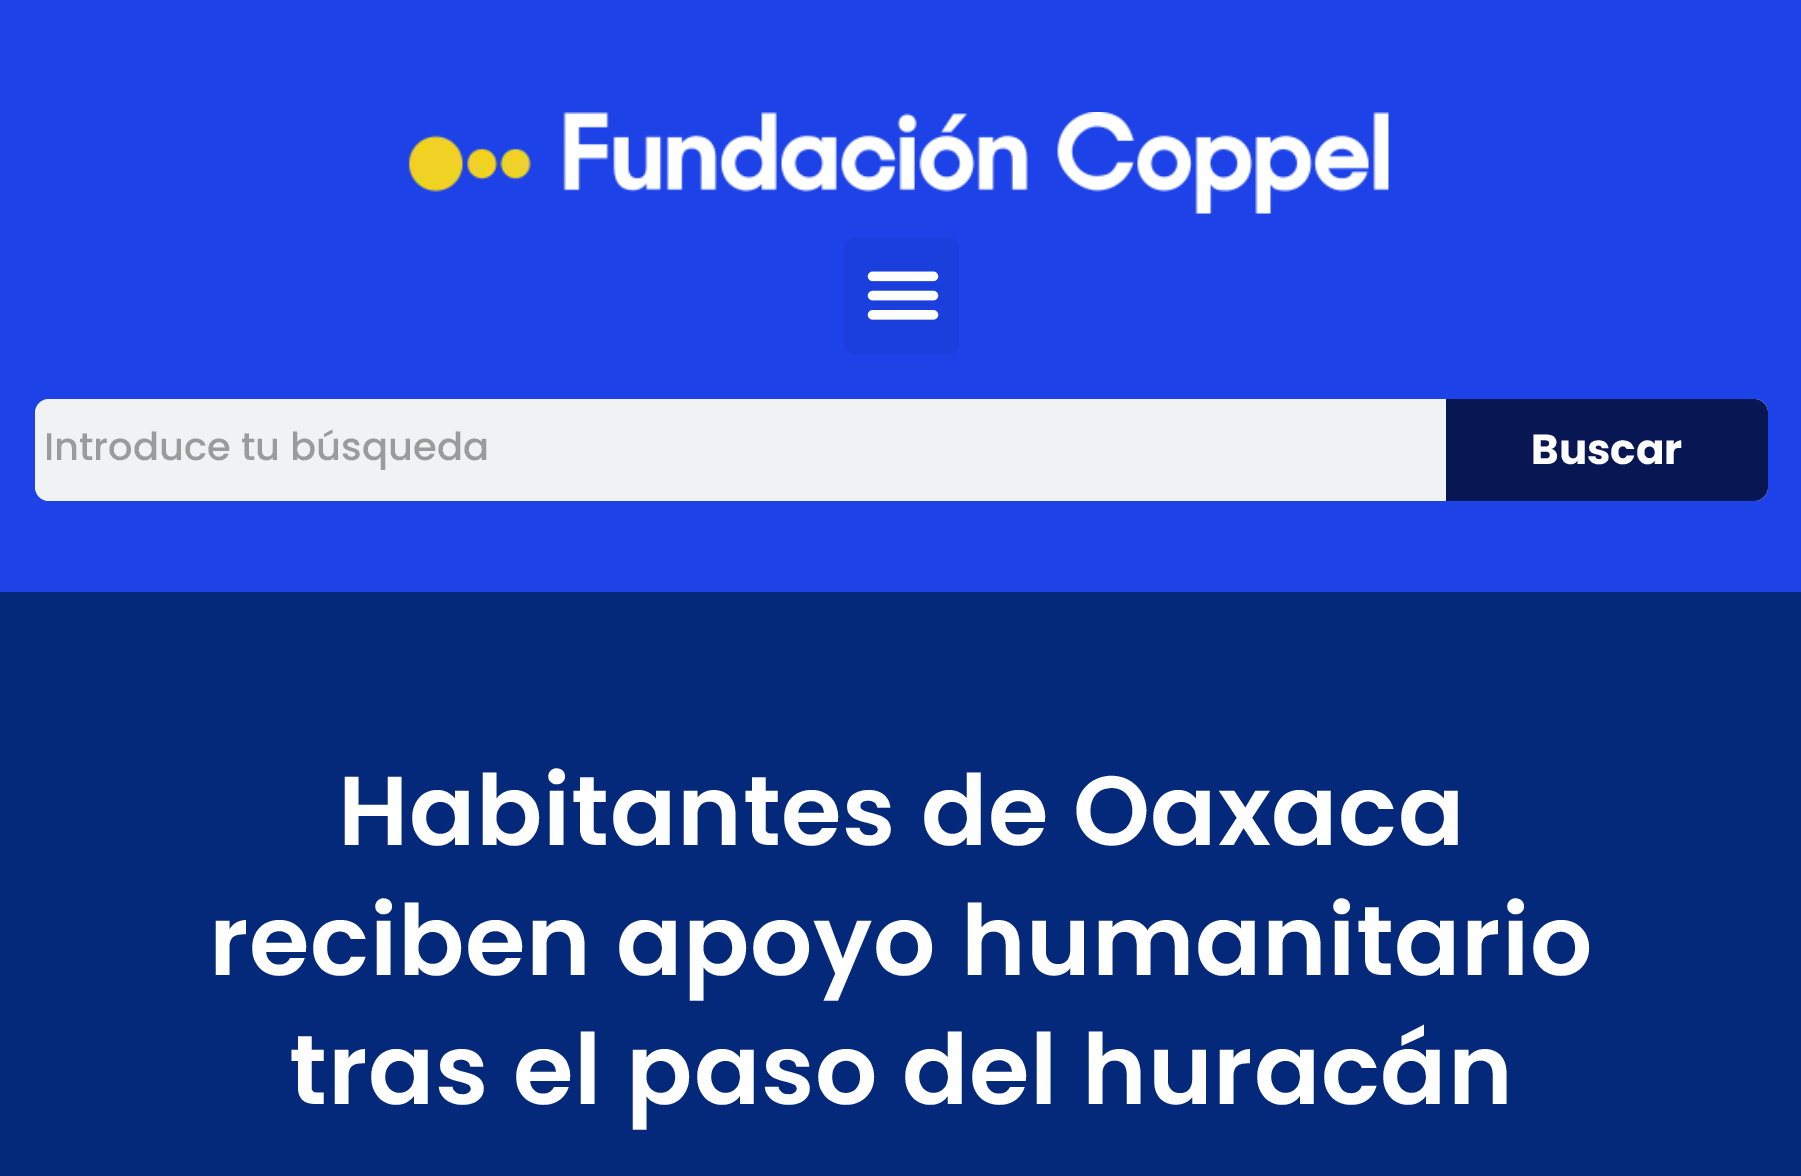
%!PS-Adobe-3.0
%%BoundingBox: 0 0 1801 1176
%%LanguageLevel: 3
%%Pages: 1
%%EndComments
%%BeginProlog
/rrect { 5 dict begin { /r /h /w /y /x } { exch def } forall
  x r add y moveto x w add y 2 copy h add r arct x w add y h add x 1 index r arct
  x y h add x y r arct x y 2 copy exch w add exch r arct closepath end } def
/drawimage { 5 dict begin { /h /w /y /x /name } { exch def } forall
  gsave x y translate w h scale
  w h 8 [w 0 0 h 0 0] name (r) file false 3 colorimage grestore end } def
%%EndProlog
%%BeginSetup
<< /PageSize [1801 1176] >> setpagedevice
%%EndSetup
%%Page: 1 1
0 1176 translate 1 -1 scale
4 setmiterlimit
0.02 0.161 0.478 setrgbcolor
0 0 1801 1176 rectfill
0.11 0.259 0.91 setrgbcolor
0 0 1801 592 rectfill
(images/1.raw) 408 112 981 102 drawimage
0.106 0.247 0.863 setrgbcolor
844 238 115 116 11 rrect fill
(images/2.raw) 867 271 72 49 drawimage
0.945 0.949 0.953 setrgbcolor
35 399 1733 102 14 rrect fill
0.031 0.09 0.329 setrgbcolor
newpath 1446 399 moveto 1754 399 lineto 1761.5 399 1768 405.5 1768 413 curveto 1768 487 lineto 1768 494.5 1761.5 501 1754 501 curveto 1446 501 lineto closepath fill
/Poppins-Medium [38.5 0 0 -38.5 0 0] selectfont
0.608 setgray
44 460 moveto (Introduce tu búsqueda) show
/Poppins-Bold [42 0 0 -42 0 0] selectfont
1 setgray
1531 464 moveto (Buscar) show
/Poppins-SemiBold [98 0 0 -98 0 0] selectfont
338 845 moveto 0.7 0 (Habitantes de Oaxaca) ashow
209 975 moveto 0.7 0 (reciben apoyo humanitario) ashow
289 1104 moveto 0.7 0 (tras el paso del huracán) ashow
showpage
%%EOF
